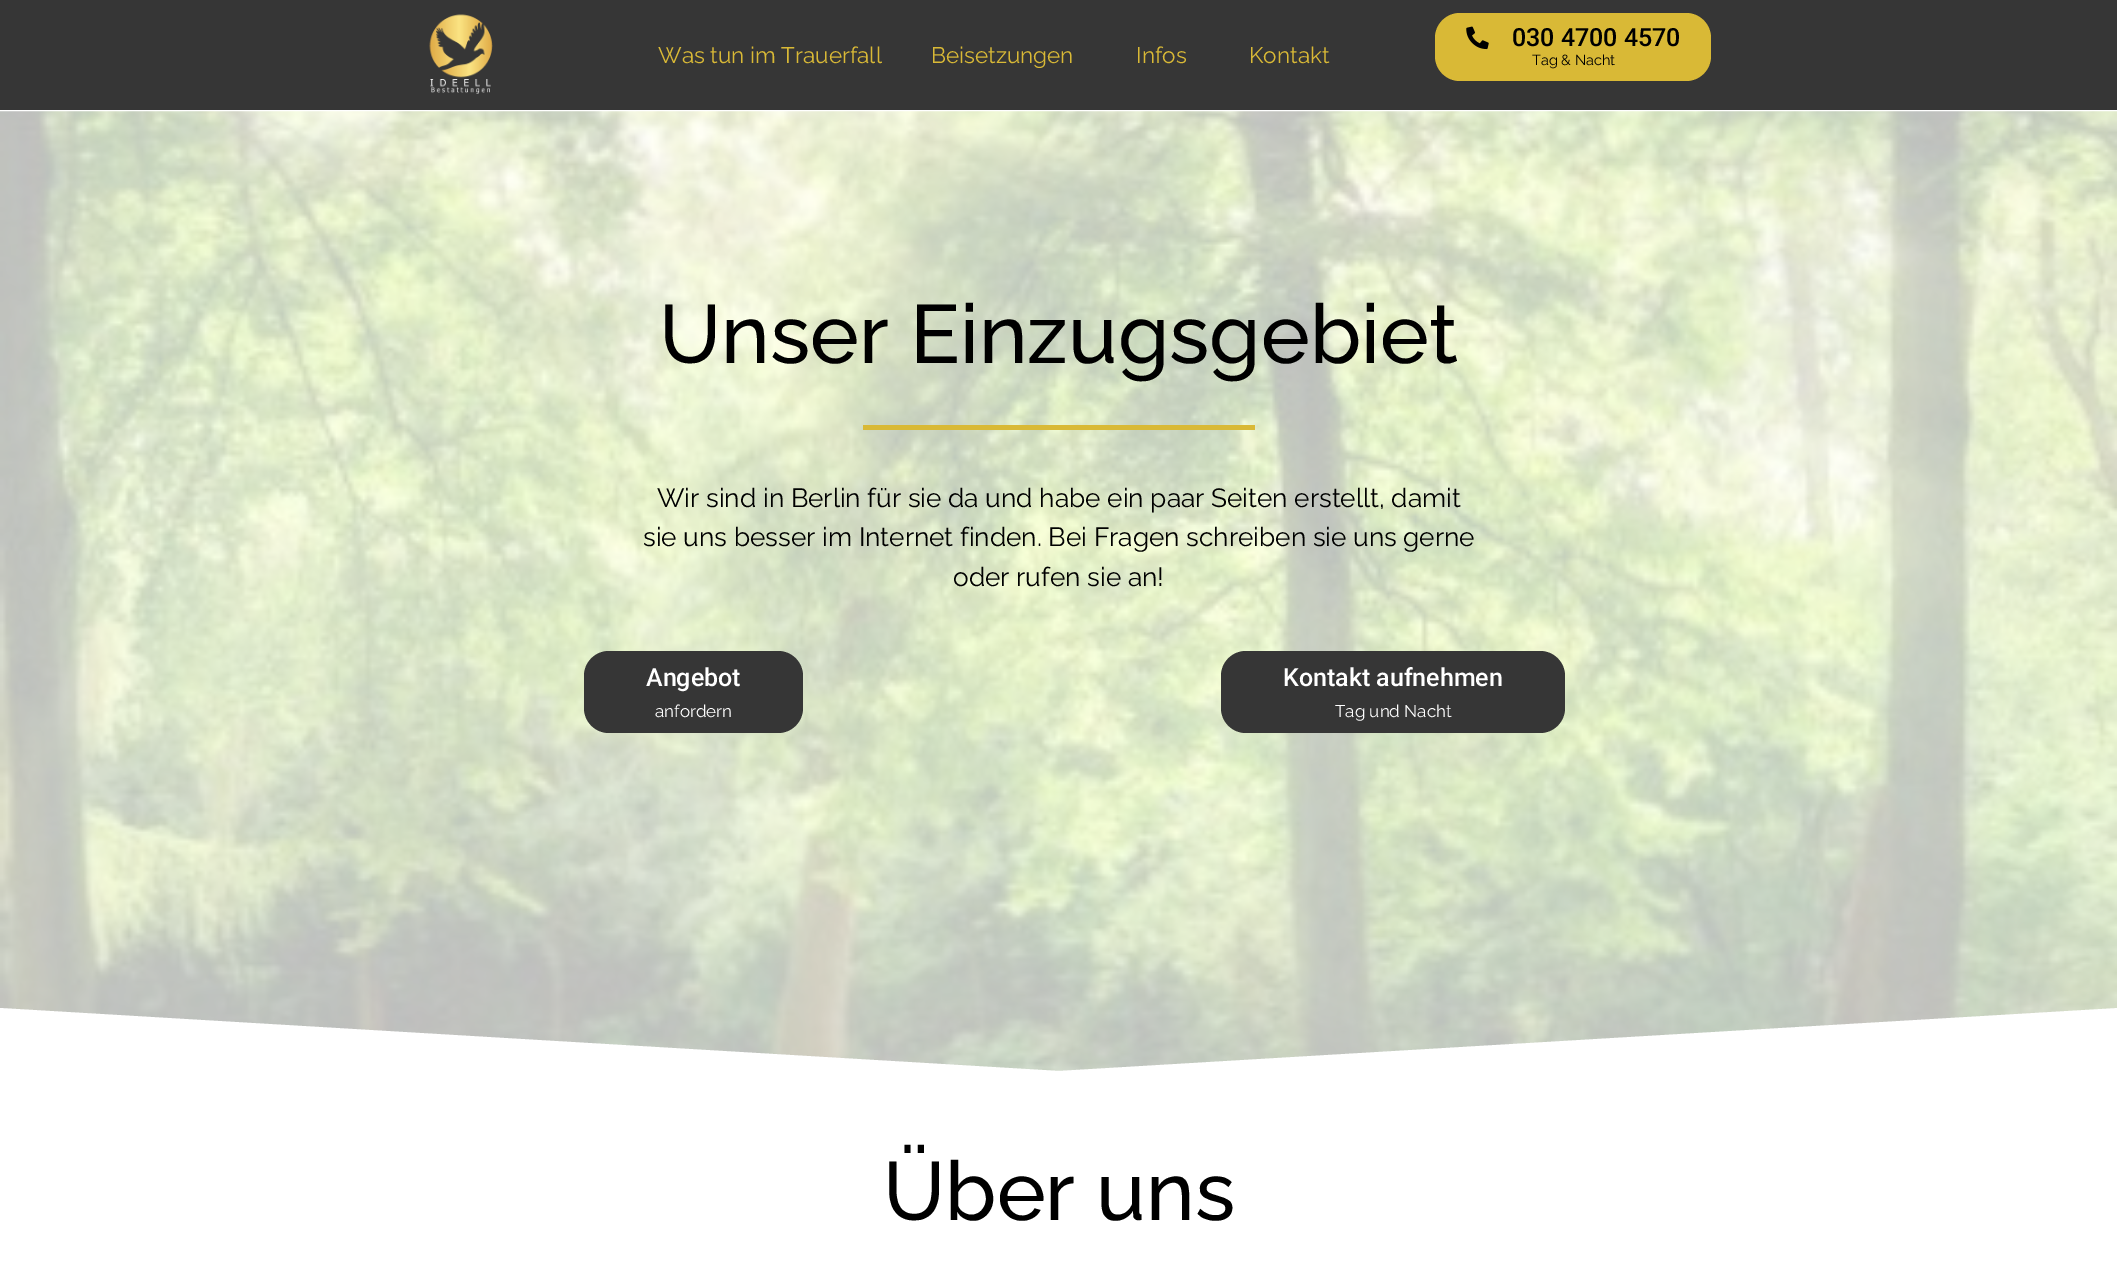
%!PS-Adobe-3.0
%%BoundingBox: 0 0 2117 1268
%%LanguageLevel: 3
%%Pages: 1
%%EndComments
%%BeginProlog
/rrect { 5 dict begin { /r /h /w /y /x } { exch def } forall
  x r add y moveto x w add y 2 copy h add r arct x w add y h add x 1 index r arct
  x y h add x y r arct x y 2 copy exch w add exch r arct closepath end } def
/drawimage { 5 dict begin { /h /w /y /x /name } { exch def } forall
  gsave x y translate w h scale
  w h 8 [w 0 0 h 0 0] name (r) file false 3 colorimage grestore end } def
%%EndProlog
%%BeginSetup
<< /PageSize [2117 1268] >> setpagedevice
%%EndSetup
%%Page: 1 1
0 1268 translate 1 -1 scale
4 setmiterlimit
1 setgray
0 0 2117 1268 rectfill
0.212 setgray
0 0 2117 110 rectfill
(images/1.raw) 429 14 64 80 drawimage
0.851 0.725 0.212 setrgbcolor
1435 13 276 68 25 rrect fill
(images/2.raw) 1466 26 23 24 drawimage
(images/3.raw) 0 111 2117 960 drawimage
863 425 392 5 rectfill
0.212 setgray
584 651 219 82 25 rrect fill
1221 651 344 82 25 rrect fill
1 setgray
newpath 1059 1071 moveto -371 986 lineto -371 1076 lineto 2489 1076 lineto 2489 986 lineto closepath fill
/Raleway-Regular [22.5 0 0 -22.5 0 0] selectfont
0.851 0.725 0.212 setrgbcolor
658 63 moveto (Was tun im Trauerfall) show
931 63 moveto (Beisetzungen) show
1136 63 moveto (Infos) show
1249 63 moveto (Kontakt) show
/Roboto-Medium [25 0 0 -25 0 0] selectfont
0 setgray
1512 46 moveto (030 4700 4570) show
/Raleway-Regular [14.5 0 0 -14.5 0 0] selectfont
1532 65 moveto (Tag & Nacht) show
/Raleway-Medium [82.5 0 0 -82.5 0 0] selectfont
659 363 moveto (Unser Einzugsgebiet) show
/Raleway-Regular [26.25 0 0 -26.25 0 0] selectfont
657 507 moveto (Wir sind in Berlin für sie da und habe ein paar Seiten erstellt, damit) show
643 546 moveto (sie uns besser im Internet finden. Bei Fragen schreiben sie uns gerne) show
953 586 moveto (oder rufen sie an!) show
/Roboto-Medium [25 0 0 -25 0 0] selectfont
1 setgray
646 686 moveto (Angebot) show
/Raleway-Regular [17 0 0 -17 0 0] selectfont
655 717 moveto (anfordern) show
/Roboto-Medium [25 0 0 -25 0 0] selectfont
1283 686 moveto (Kontakt aufnehmen) show
/Raleway-Regular [17 0 0 -17 0 0] selectfont
1335 717 moveto (Tag und Nacht) show
/Raleway-Medium [82.5 0 0 -82.5 0 0] selectfont
0 setgray
883 1220 moveto (Über uns) show
showpage
%%EOF
